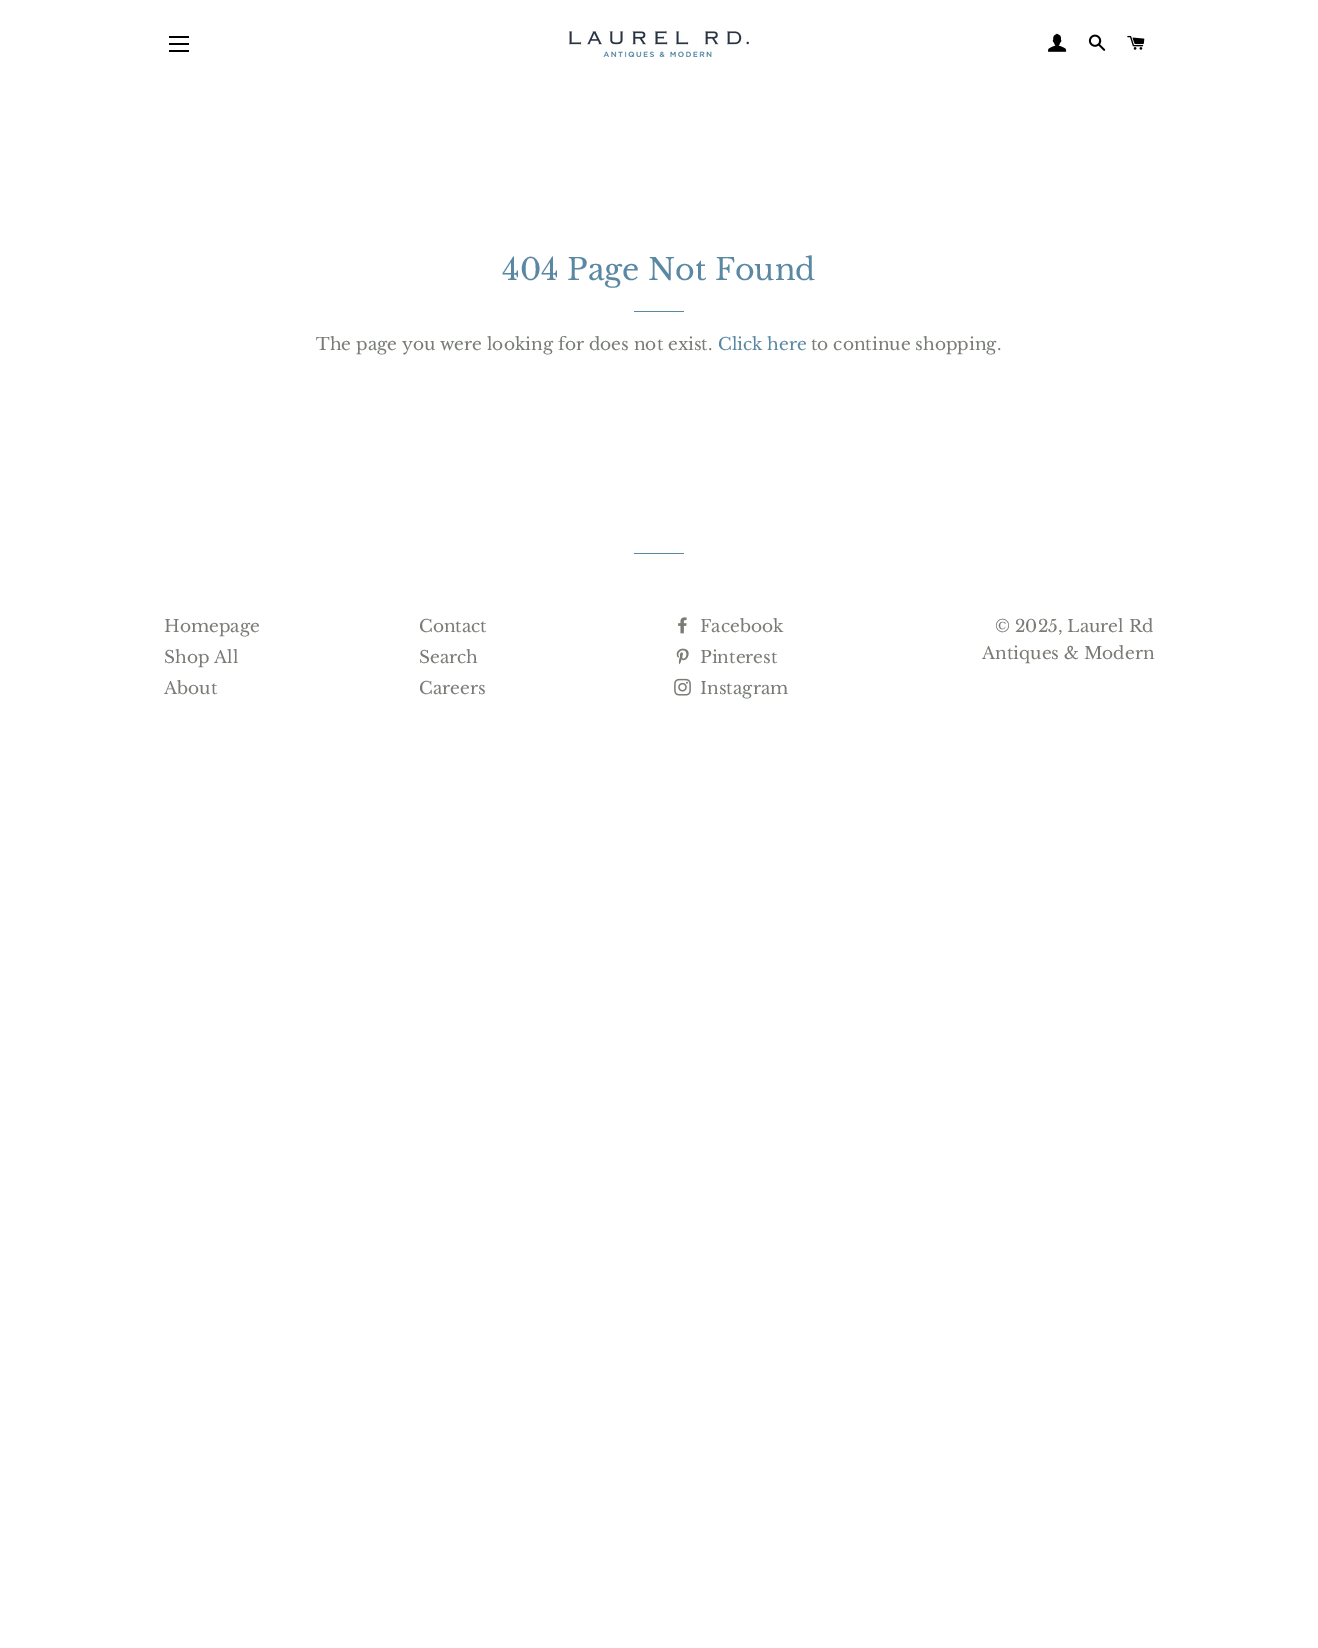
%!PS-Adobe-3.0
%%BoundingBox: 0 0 1318 1648
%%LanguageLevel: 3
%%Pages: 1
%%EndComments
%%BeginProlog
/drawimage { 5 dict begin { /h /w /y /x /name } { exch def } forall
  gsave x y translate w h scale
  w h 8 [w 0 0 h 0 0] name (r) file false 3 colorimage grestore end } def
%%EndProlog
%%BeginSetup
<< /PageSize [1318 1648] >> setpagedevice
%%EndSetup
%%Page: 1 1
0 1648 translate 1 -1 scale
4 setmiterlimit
1 setgray
0 0 1318 1648 rectfill
0 setgray
169 36 20 2 rectfill
169 43 20 2 rectfill
169 50 20 2 rectfill
(images/1.raw) 569 31 180 26 drawimage
(images/2.raw) 1048 33 19 19 drawimage
(images/3.raw) 1088 34 18 17 drawimage
(images/4.raw) 1127 35 18 15 drawimage
0.353 0.533 0.639 setrgbcolor
634 311 50 1 rectfill
634 553 50 1 rectfill
(images/5.raw) 678 617 9 17 drawimage
(images/6.raw) 676 648 13 17 drawimage
(images/7.raw) 674 678 17 18 drawimage
/LibreBaskerville-Regular [30 0 0 -30 0 0] selectfont
502 280 moveto (404 Page Not Found) show
/LibreBaskerville-Regular [17 0 0 -17 0 0] selectfont
0.471 0.486 0.459 setrgbcolor
316 350 moveto (The page you were looking for does not exist.) show
0.353 0.533 0.639 setrgbcolor
718 350 moveto (Click here) show
0.471 0.486 0.459 setrgbcolor
811 350 moveto (to continue shopping.) show
164 632 moveto (Homepage) show
164 663 moveto (Shop All) show
164 694 moveto (About) show
419 632 moveto (Contact) show
419 663 moveto (Search) show
419 694 moveto (Careers) show
700 632 moveto (Facebook) show
700 663 moveto (Pinterest) show
700 694 moveto (Instagram) show
995 632 moveto (© 2025, Laurel Rd) show
982 659 moveto (Antiques & Modern) show
showpage
%%EOF
